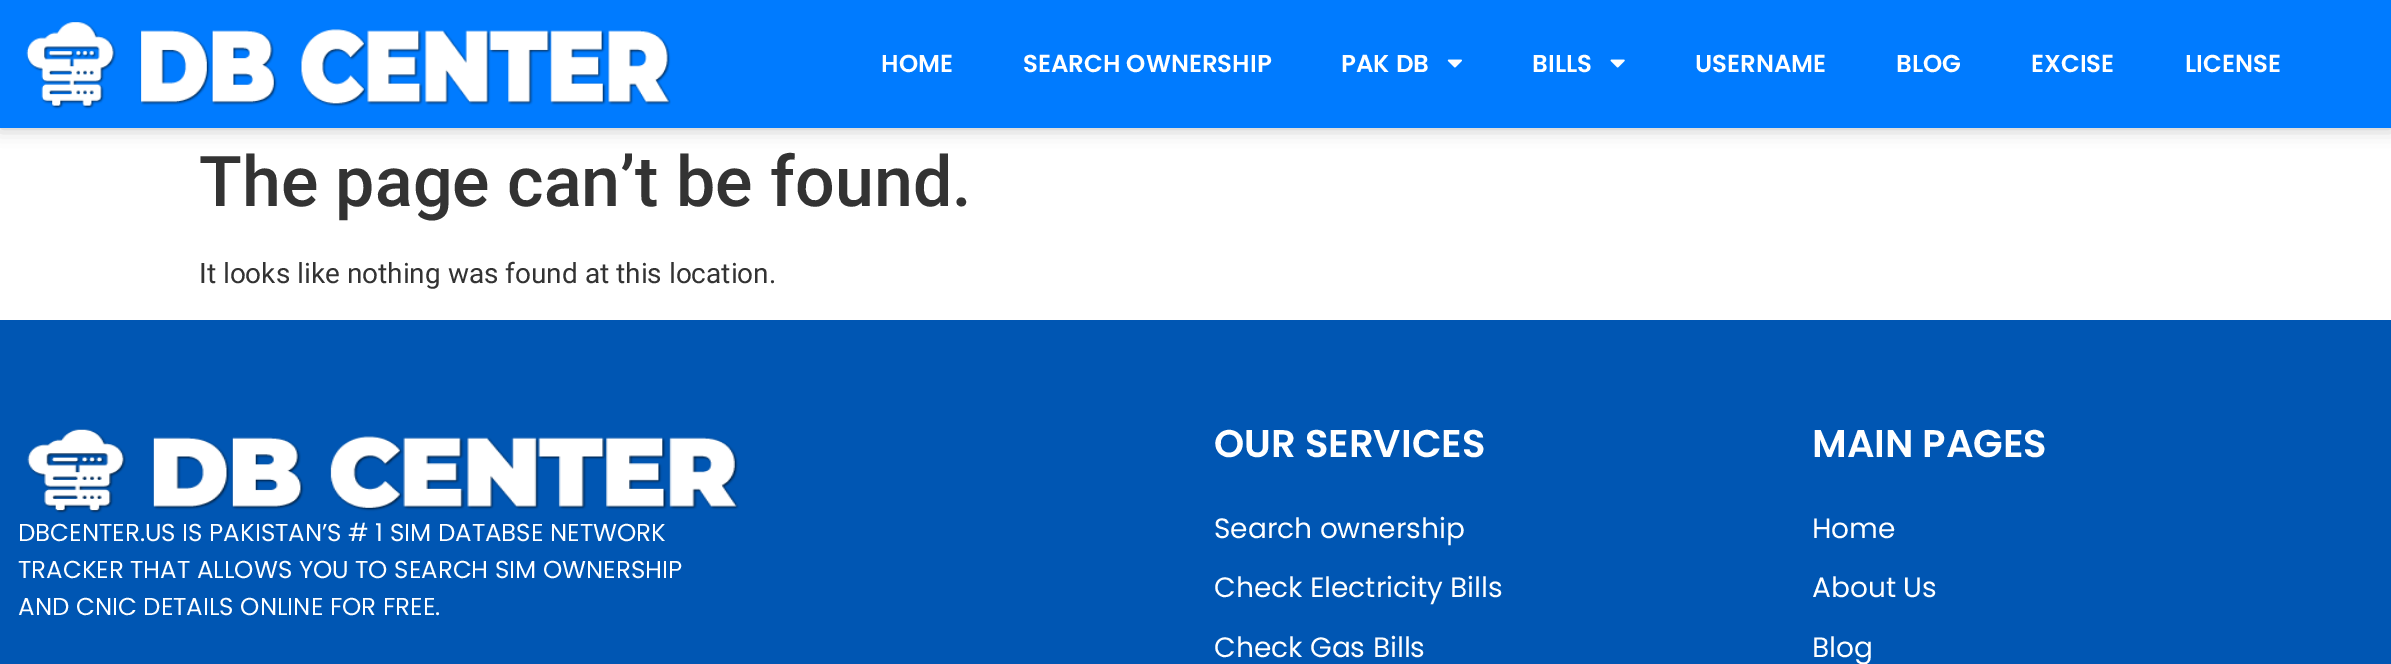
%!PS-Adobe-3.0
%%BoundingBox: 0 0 2391 664
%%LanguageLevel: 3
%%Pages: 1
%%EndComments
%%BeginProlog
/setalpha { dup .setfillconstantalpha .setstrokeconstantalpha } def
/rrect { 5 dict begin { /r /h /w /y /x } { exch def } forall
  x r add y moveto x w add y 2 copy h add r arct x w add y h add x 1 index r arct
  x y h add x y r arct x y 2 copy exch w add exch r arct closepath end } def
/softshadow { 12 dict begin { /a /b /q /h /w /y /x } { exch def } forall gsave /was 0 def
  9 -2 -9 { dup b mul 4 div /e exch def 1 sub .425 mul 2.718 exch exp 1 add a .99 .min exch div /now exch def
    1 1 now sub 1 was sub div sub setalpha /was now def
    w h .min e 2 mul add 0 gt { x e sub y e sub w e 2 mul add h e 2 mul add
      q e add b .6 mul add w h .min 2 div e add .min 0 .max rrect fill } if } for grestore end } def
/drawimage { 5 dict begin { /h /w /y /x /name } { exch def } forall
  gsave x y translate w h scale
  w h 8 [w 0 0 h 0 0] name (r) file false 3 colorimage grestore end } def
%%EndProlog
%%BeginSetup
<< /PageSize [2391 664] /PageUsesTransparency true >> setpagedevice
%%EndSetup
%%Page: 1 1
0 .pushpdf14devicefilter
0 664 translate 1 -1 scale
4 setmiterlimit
1 setgray
0 0 2391 664 rectfill
0 setgray
0 0 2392 128 0 9 0.25 softshadow
0 0.482 1 setrgbcolor
0 0 2391 128 rectfill
(images/1.raw) 26 21 645 88 drawimage
(images/2.raw) 1447 59 15 9 drawimage
(images/3.raw) 1610 59 15 9 drawimage
0 0.337 0.702 setrgbcolor
0 320 2391 344 rectfill
(images/4.raw) 27 429 712 85 drawimage
/Poppins-SemiBold [24.5 0 0 -24.5 0 0] selectfont
1 setgray
881 72 moveto (HOME) show
1023 72 moveto (SEARCH OWNERSHIP) show
1341 72 moveto (PAK DB) show
1532 72 moveto (BILLS) show
1695 72 moveto (USERNAME) show
1896 72 moveto (BLOG) show
2031 72 moveto (EXCISE) show
2185 72 moveto (LICENSE) show
/Roboto-Medium [70 0 0 -70 0 0] selectfont
0.2 setgray
199 206 moveto (The page can’t be found.) show
/Roboto-Regular [28 0 0 -28 0 0] selectfont
199 283 moveto (It looks like nothing was found at this location.) show
/Poppins-Regular [24.5 0 0 -24.5 0 0] selectfont
1 setgray
18 541 moveto (DBCENTER.US IS PAKISTAN’S # 1 SIM DATABSE NETWORK) show
18 578 moveto (TRACKER THAT ALLOWS YOU TO SEARCH SIM OWNERSHIP) show
18 615 moveto (AND CNIC DETAILS ONLINE FOR FREE.) show
/Poppins-SemiBold [38.5 0 0 -38.5 0 0] selectfont
1214 457 moveto (OUR SERVICES) show
/Poppins-Regular [28 0 0 -28 0 0] selectfont
1214 538 moveto (Search ownership) show
1214 597 moveto (Check Electricity Bills) show
1214 657 moveto (Check Gas Bills) show
/Poppins-SemiBold [38.5 0 0 -38.5 0 0] selectfont
1812 457 moveto (MAIN PAGES) show
/Poppins-Regular [28 0 0 -28 0 0] selectfont
1812 538 moveto (Home) show
1812 597 moveto (About Us) show
1812 657 moveto (Blog) show
.poppdf14devicefilter showpage
%%EOF
